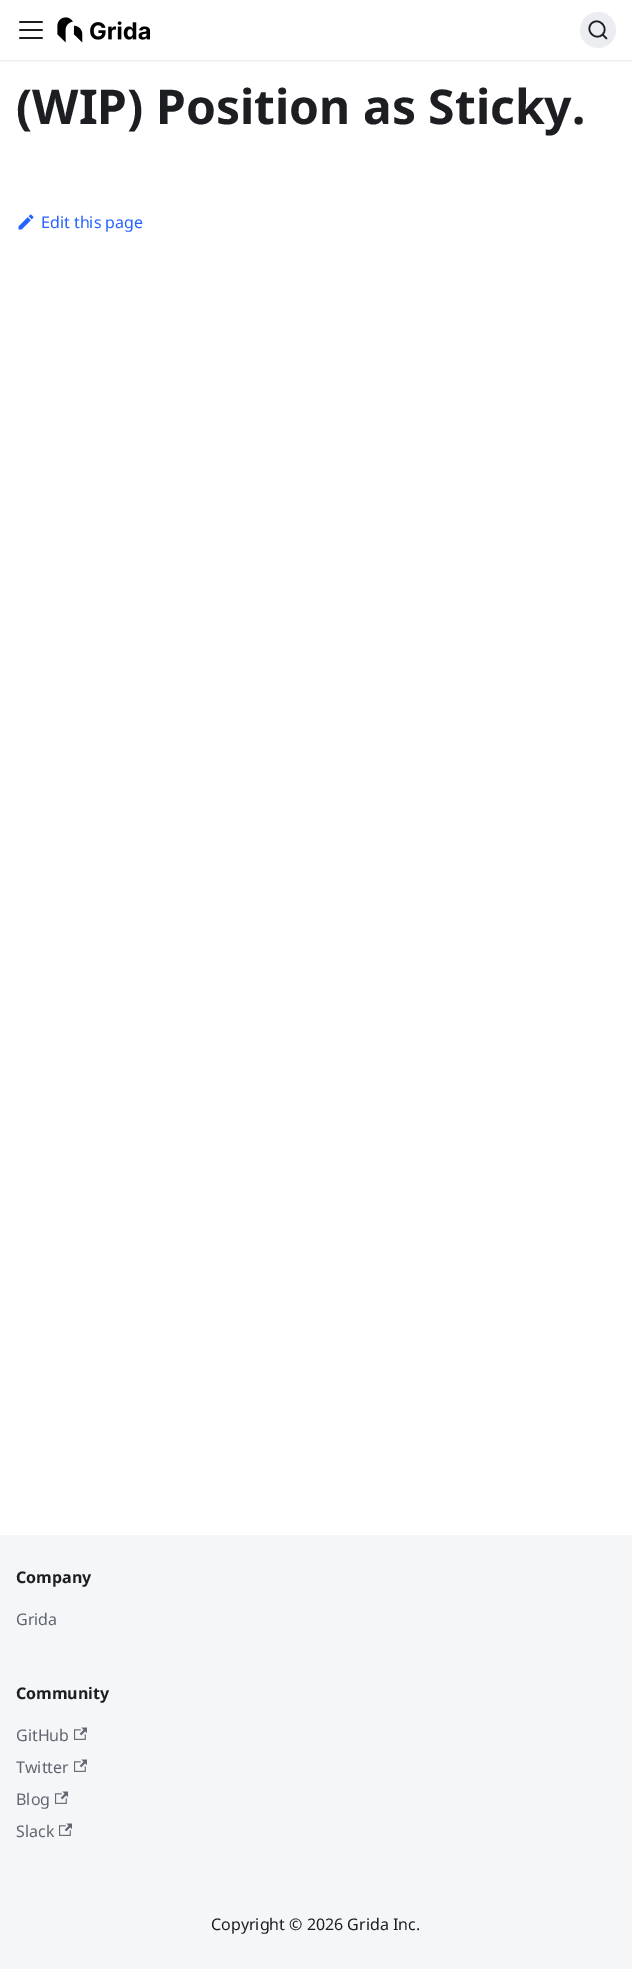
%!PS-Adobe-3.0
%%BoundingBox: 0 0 632 1969
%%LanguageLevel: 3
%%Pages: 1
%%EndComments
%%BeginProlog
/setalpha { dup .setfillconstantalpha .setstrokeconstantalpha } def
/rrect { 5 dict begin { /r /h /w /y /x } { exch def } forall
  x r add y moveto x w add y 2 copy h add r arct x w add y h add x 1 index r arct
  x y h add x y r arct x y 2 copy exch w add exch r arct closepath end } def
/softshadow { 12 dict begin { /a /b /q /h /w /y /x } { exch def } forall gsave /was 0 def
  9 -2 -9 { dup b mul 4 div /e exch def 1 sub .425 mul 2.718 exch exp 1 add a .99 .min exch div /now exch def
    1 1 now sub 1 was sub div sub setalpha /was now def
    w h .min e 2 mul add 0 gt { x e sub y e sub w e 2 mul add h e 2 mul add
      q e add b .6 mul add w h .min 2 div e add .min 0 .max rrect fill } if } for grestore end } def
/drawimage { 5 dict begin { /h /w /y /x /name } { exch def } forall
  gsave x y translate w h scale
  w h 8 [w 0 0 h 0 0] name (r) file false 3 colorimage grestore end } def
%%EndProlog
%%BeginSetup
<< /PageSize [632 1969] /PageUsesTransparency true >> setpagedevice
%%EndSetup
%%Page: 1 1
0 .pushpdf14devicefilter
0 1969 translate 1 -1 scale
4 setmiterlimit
1 setgray
0 0 632 1969 rectfill
gsave
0 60 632 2 rectclip
0 setgray
0 1 632 60 0 1 0.1 softshadow
grestore
(images/1.raw) 19 21 24 18 drawimage
(images/2.raw) 57 17 94 26 drawimage
0.922 0.929 0.941 setrgbcolor
newpath 598 30 18 0 360 arc closepath fill
0.11 0.118 0.129 setrgbcolor
1.6 setlinewidth
1 setlinecap
1 setlinejoin
newpath 602.5 34.5 moveto 606.5 38.5 lineto 602.5 34.5 lineto 595.5 41.5 584.5 30.5 591.5 23.5 curveto 598.5 16.5 609.5 27.5 602.5 34.5 curveto closepath stroke
(images/3.raw) 18 214 16 16 drawimage
0.961 0.965 0.969 setrgbcolor
0 1535 632 434 rectfill
(images/4.raw) 74 1727 13 13 drawimage
(images/4.raw) 74 1759 13 13 drawimage
(images/4.raw) 55 1791 13 13 drawimage
(images/4.raw) 59 1823 13 13 drawimage
/NotoSans-Bold [48 0 0 -48 0 0] selectfont
0.11 0.118 0.129 setrgbcolor
16 124 moveto (\(WIP\) Position as Sticky.) show
/NotoSans-Regular [16 0 0 -16 0 0] selectfont
0.145 0.384 1 setrgbcolor
41 228 moveto (Edit this page) show
/NotoSans-Bold [16 0 0 -16 0 0] selectfont
0.11 0.118 0.129 setrgbcolor
16 1583 moveto (Company) show
/NotoSans-Regular [16 0 0 -16 0 0] selectfont
0.376 0.404 0.439 setrgbcolor
16 1625 moveto (Grida) show
/NotoSans-Bold [16 0 0 -16 0 0] selectfont
0.11 0.118 0.129 setrgbcolor
16 1699 moveto (Community) show
/NotoSans-Regular [16 0 0 -16 0 0] selectfont
0.376 0.404 0.439 setrgbcolor
16 1741 moveto (GitHub) show
16 1773 moveto (Twitter) show
16 1805 moveto (Blog) show
16 1837 moveto (Slack) show
0.11 0.118 0.129 setrgbcolor
211 1930 moveto (Copyright © 2026 Grida Inc.) show
.poppdf14devicefilter showpage
%%EOF
